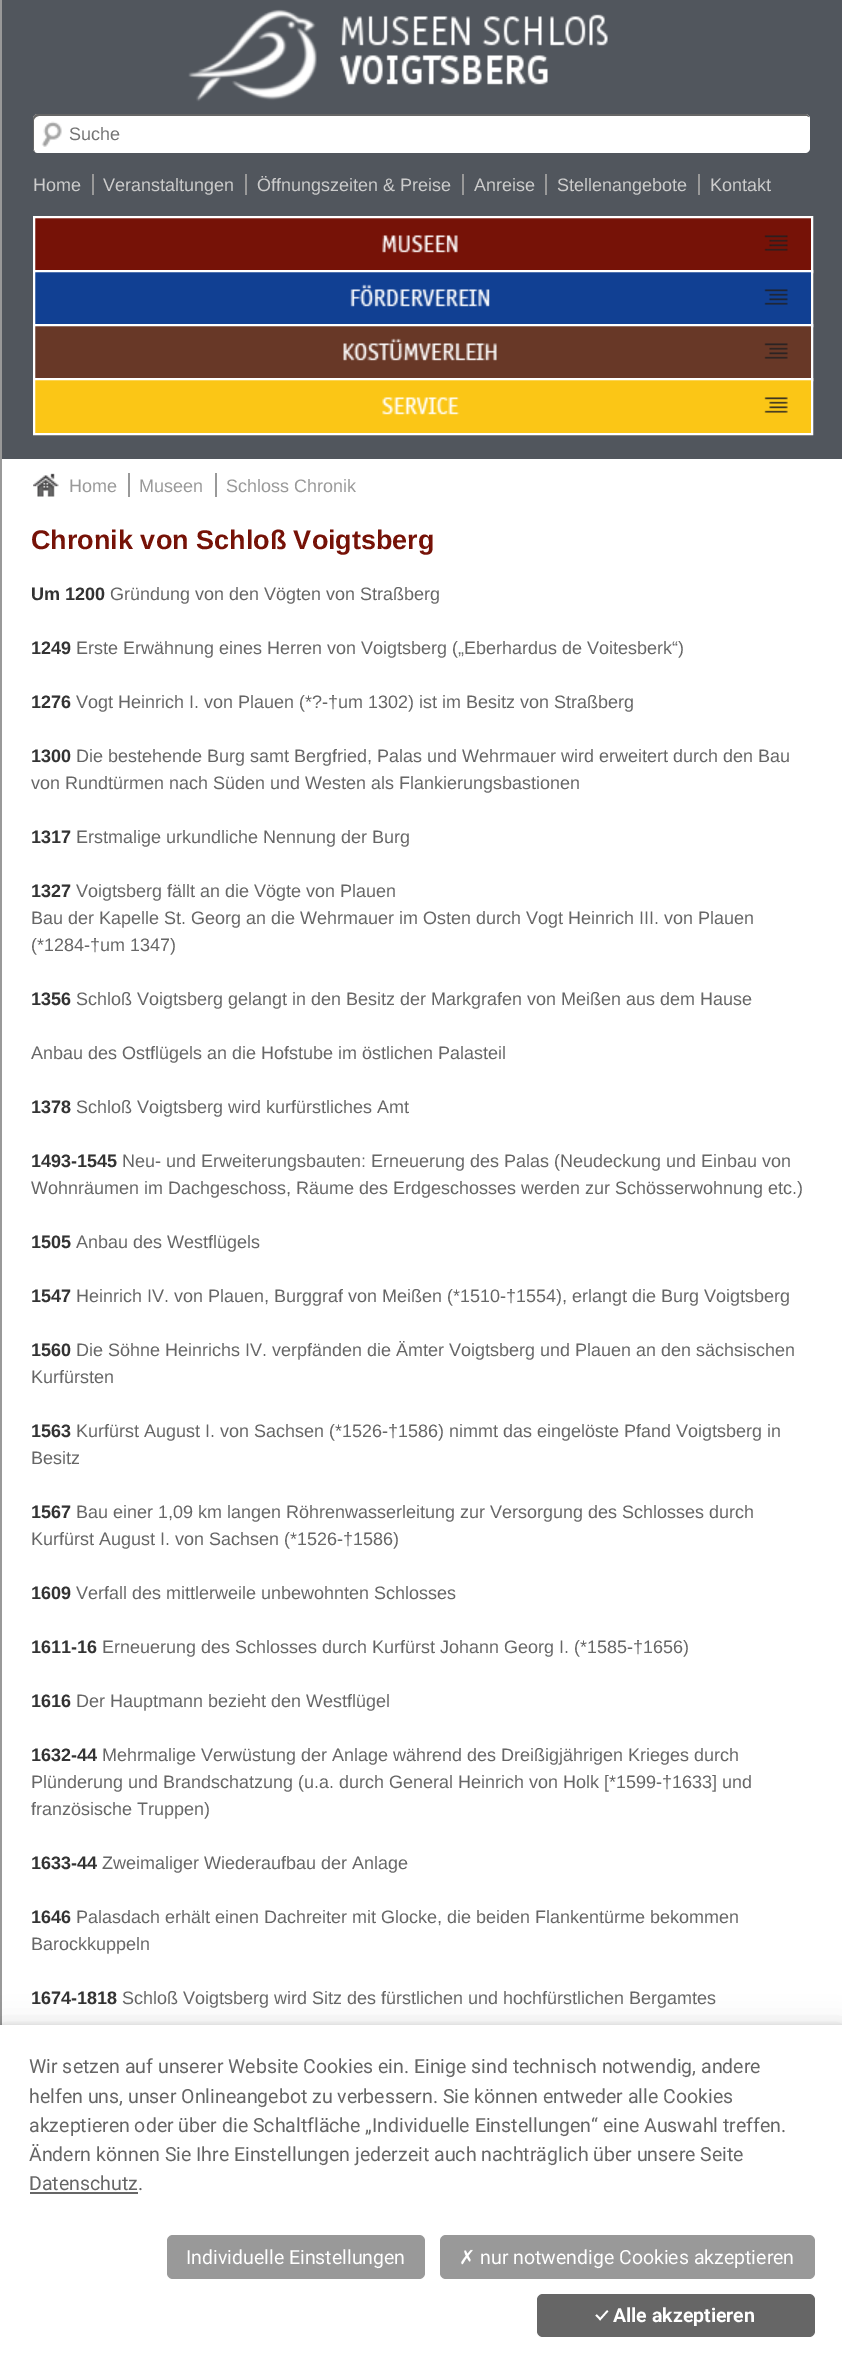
%!PS-Adobe-3.0
%%BoundingBox: 0 0 842 2372
%%LanguageLevel: 3
%%Pages: 1
%%EndComments
%%BeginProlog
/setalpha { dup .setfillconstantalpha .setstrokeconstantalpha } def
/rrect { 5 dict begin { /r /h /w /y /x } { exch def } forall
  x r add y moveto x w add y 2 copy h add r arct x w add y h add x 1 index r arct
  x y h add x y r arct x y 2 copy exch w add exch r arct closepath end } def
/softshadow { 12 dict begin { /a /b /q /h /w /y /x } { exch def } forall gsave /was 0 def
  9 -2 -9 { dup b mul 4 div /e exch def 1 sub .425 mul 2.718 exch exp 1 add a .99 .min exch div /now exch def
    1 1 now sub 1 was sub div sub setalpha /was now def
    w h .min e 2 mul add 0 gt { x e sub y e sub w e 2 mul add h e 2 mul add
      q e add b .6 mul add w h .min 2 div e add .min 0 .max rrect fill } if } for grestore end } def
/drawimage { 5 dict begin { /h /w /y /x /name } { exch def } forall
  gsave x y translate w h scale
  w h 8 [w 0 0 h 0 0] name (r) file false 3 colorimage grestore end } def
%%EndProlog
%%BeginSetup
<< /PageSize [842 2372] /PageUsesTransparency true >> setpagedevice
%%EndSetup
%%Page: 1 1
0 .pushpdf14devicefilter
0 2372 translate 1 -1 scale
4 setmiterlimit
1 setgray
0 0 842 2372 rectfill
0.6 setgray
0 0 2 2025 rectfill
0.318 0.337 0.365 setrgbcolor
2 0 840 459 rectfill
(images/1.raw) 188 9 420 93 drawimage
1 setgray
33 114 777 39 5 rrect fill
0.4 setgray
newpath 39 116 moveto 807 116 lineto 809 117 lineto 809 115 807 114 805 114 curveto 38 114 lineto 35 114 33 116 33 119 curveto 33 148 lineto 33 150 34 151 35 152 curveto 34 150 lineto 34 120 lineto 34 118 37 116 39 116 curveto closepath fill
(images/2.raw) 41 121 21 26 drawimage
0.6 setgray
92 174 2 21 rectfill
245 174 2 21 rectfill
462 174 2 21 rectfill
545 174 2 21 rectfill
698 174 2 21 rectfill
0.463 0.071 0.027 setrgbcolor
35 218 776 52 rectfill
1 setgray
2 setlinewidth
34 217 778 55 rectstroke
(images/3.raw) 382 235 76 18 drawimage
(images/4.raw) 764 235 24 16 drawimage
0.067 0.251 0.576 setrgbcolor
35 272 776 52 rectfill
1 setgray
34 271 778 55 rectstroke
(images/5.raw) 350 284 140 23 drawimage
(images/6.raw) 764 289 24 16 drawimage
0.408 0.22 0.153 setrgbcolor
35 326 776 52 rectfill
1 setgray
34 325 778 55 rectstroke
(images/7.raw) 343 338 154 23 drawimage
(images/8.raw) 764 343 24 16 drawimage
0.984 0.776 0.086 setrgbcolor
newpath 34 379 moveto 812 379 lineto 812 434 lineto 34 434 lineto closepath gsave fill grestore
1 setgray
stroke
(images/9.raw) 382 397 78 18 drawimage
(images/10.raw) 764 397 24 16 drawimage
(images/11.raw) 33 473 26 24 drawimage
0.6 setgray
128 473 2 24 rectfill
215 473 2 24 rectfill
0 setgray
0 2025 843 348 0 13.5 0.1 softshadow
0 2025 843 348 0 5 0.07 softshadow
0 2025 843 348 0 2.5 0.06 softshadow
1 setgray
0 2025 842 347 rectfill
0.4 setgray
30 2192 108 2 rectfill
0.6 setgray
167 2235 258 44 6 rrect fill
440 2235 375 44 6 rrect fill
0.4 setgray
537 2294 278 43 6 rrect fill
/LiberationSans-Regular [18 0 0 -18 0 0] selectfont
0.459 setgray
69 140 moveto (Suche) show
0.8 setgray
33 191 moveto (Home) show
103 191 moveto (Veranstaltungen) show
257 191 moveto (Öffnungszeiten & Preise) show
474 191 moveto (Anreise) show
557 191 moveto (Stellenangebote) show
710 191 moveto (Kontakt) show
0.6 setgray
69 492 moveto (Home) show
139 492 moveto (Museen) show
226 492 moveto (Schloss Chronik) show
/LiberationSans-Bold [27 0 0 -27 0 0] selectfont
0.463 0.071 0.027 setrgbcolor
31 549 moveto (Chronik von Schloß Voigtsberg) show
/LiberationSans-Bold [18 0 0 -18 0 0] selectfont
0.2 setgray
31 600 moveto (Um 1200) show
/LiberationSans-Regular [18 0 0 -18 0 0] selectfont
0.4 setgray
110 600 moveto (Gründung von den Vögten von Straßberg) show
/LiberationSans-Bold [18 0 0 -18 0 0] selectfont
0.2 setgray
31 654 moveto (1249) show
/LiberationSans-Regular [18 0 0 -18 0 0] selectfont
0.4 setgray
76 654 moveto (Erste Erwähnung eines Herren von Voigtsberg \(„Eberhardus de Voitesberk“\)) show
/LiberationSans-Bold [18 0 0 -18 0 0] selectfont
0.2 setgray
31 708 moveto (1276) show
/LiberationSans-Regular [18 0 0 -18 0 0] selectfont
0.4 setgray
76 708 moveto (Vogt Heinrich I. von Plauen \(*?-†um 1302\) ist im Besitz von Straßberg) show
/LiberationSans-Bold [18 0 0 -18 0 0] selectfont
0.2 setgray
31 762 moveto (1300) show
/LiberationSans-Regular [18 0 0 -18 0 0] selectfont
0.4 setgray
76 762 moveto (Die bestehende Burg samt Bergfried, Palas und Wehrmauer wird erweitert durch den Bau) show
31 789 moveto (von Rundtürmen nach Süden und Westen als Flankierungsbastionen) show
/LiberationSans-Bold [18 0 0 -18 0 0] selectfont
0.2 setgray
31 843 moveto (1317) show
/LiberationSans-Regular [18 0 0 -18 0 0] selectfont
0.4 setgray
76 843 moveto (Erstmalige urkundliche Nennung der Burg) show
/LiberationSans-Bold [18 0 0 -18 0 0] selectfont
0.2 setgray
31 897 moveto (1327) show
/LiberationSans-Regular [18 0 0 -18 0 0] selectfont
0.4 setgray
76 897 moveto (Voigtsberg fällt an die Vögte von Plauen) show
31 924 moveto (Bau der Kapelle St. Georg an die Wehrmauer im Osten durch Vogt Heinrich III. von Plauen) show
31 951 moveto (\(*1284-†um 1347\)) show
/LiberationSans-Bold [18 0 0 -18 0 0] selectfont
0.2 setgray
31 1005 moveto (1356) show
/LiberationSans-Regular [18 0 0 -18 0 0] selectfont
0.4 setgray
76 1005 moveto (Schloß Voigtsberg gelangt in den Besitz der Markgrafen von Meißen aus dem Hause) show
31 1059 moveto (Anbau des Ostflügels an die Hofstube im östlichen Palasteil) show
/LiberationSans-Bold [18 0 0 -18 0 0] selectfont
0.2 setgray
31 1113 moveto (1378) show
/LiberationSans-Regular [18 0 0 -18 0 0] selectfont
0.4 setgray
76 1113 moveto (Schloß Voigtsberg wird kurfürstliches Amt) show
/LiberationSans-Bold [18 0 0 -18 0 0] selectfont
0.2 setgray
31 1167 moveto (1493-1545) show
/LiberationSans-Regular [18 0 0 -18 0 0] selectfont
0.4 setgray
122 1167 moveto (Neu- und Erweiterungsbauten: Erneuerung des Palas \(Neudeckung und Einbau von) show
31 1194 moveto (Wohnräumen im Dachgeschoss, Räume des Erdgeschosses werden zur Schösserwohnung etc.\)) show
/LiberationSans-Bold [18 0 0 -18 0 0] selectfont
0.2 setgray
31 1248 moveto (1505) show
/LiberationSans-Regular [18 0 0 -18 0 0] selectfont
0.4 setgray
76 1248 moveto (Anbau des Westflügels) show
/LiberationSans-Bold [18 0 0 -18 0 0] selectfont
0.2 setgray
31 1302 moveto (1547) show
/LiberationSans-Regular [18 0 0 -18 0 0] selectfont
0.4 setgray
76 1302 moveto (Heinrich IV. von Plauen, Burggraf von Meißen \(*1510-†1554\), erlangt die Burg Voigtsberg) show
/LiberationSans-Bold [18 0 0 -18 0 0] selectfont
0.2 setgray
31 1356 moveto (1560) show
/LiberationSans-Regular [18 0 0 -18 0 0] selectfont
0.4 setgray
76 1356 moveto (Die Söhne Heinrichs IV. verpfänden die Ämter Voigtsberg und Plauen an den sächsischen) show
31 1383 moveto (Kurfürsten) show
/LiberationSans-Bold [18 0 0 -18 0 0] selectfont
0.2 setgray
31 1437 moveto (1563) show
/LiberationSans-Regular [18 0 0 -18 0 0] selectfont
0.4 setgray
76 1437 moveto (Kurfürst August I. von Sachsen \(*1526-†1586\) nimmt das eingelöste Pfand Voigtsberg in) show
31 1464 moveto (Besitz) show
/LiberationSans-Bold [18 0 0 -18 0 0] selectfont
0.2 setgray
31 1518 moveto (1567) show
/LiberationSans-Regular [18 0 0 -18 0 0] selectfont
0.4 setgray
76 1518 moveto (Bau einer 1,09 km langen Röhrenwasserleitung zur Versorgung des Schlosses durch) show
31 1545 moveto (Kurfürst August I. von Sachsen \(*1526-†1586\)) show
/LiberationSans-Bold [18 0 0 -18 0 0] selectfont
0.2 setgray
31 1599 moveto (1609) show
/LiberationSans-Regular [18 0 0 -18 0 0] selectfont
0.4 setgray
76 1599 moveto (Verfall des mittlerweile unbewohnten Schlosses) show
/LiberationSans-Bold [18 0 0 -18 0 0] selectfont
0.2 setgray
31 1653 moveto (1611-16) show
/LiberationSans-Regular [18 0 0 -18 0 0] selectfont
0.4 setgray
102 1653 moveto (Erneuerung des Schlosses durch Kurfürst Johann Georg I. \(*1585-†1656\)) show
/LiberationSans-Bold [18 0 0 -18 0 0] selectfont
0.2 setgray
31 1707 moveto (1616) show
/LiberationSans-Regular [18 0 0 -18 0 0] selectfont
0.4 setgray
76 1707 moveto (Der Hauptmann bezieht den Westflügel) show
/LiberationSans-Bold [18 0 0 -18 0 0] selectfont
0.2 setgray
31 1761 moveto (1632-44) show
/LiberationSans-Regular [18 0 0 -18 0 0] selectfont
0.4 setgray
102 1761 moveto (Mehrmalige Verwüstung der Anlage während des Dreißigjährigen Krieges durch) show
31 1788 moveto (Plünderung und Brandschatzung \(u.a. durch General Heinrich von Holk [*1599-†1633] und) show
31 1815 moveto (französische Truppen\)) show
/LiberationSans-Bold [18 0 0 -18 0 0] selectfont
0.2 setgray
31 1869 moveto (1633-44) show
/LiberationSans-Regular [18 0 0 -18 0 0] selectfont
0.4 setgray
102 1869 moveto (Zweimaliger Wiederaufbau der Anlage) show
/LiberationSans-Bold [18 0 0 -18 0 0] selectfont
0.2 setgray
31 1923 moveto (1646) show
/LiberationSans-Regular [18 0 0 -18 0 0] selectfont
0.4 setgray
76 1923 moveto (Palasdach erhält einen Dachreiter mit Glocke, die beiden Flankentürme bekommen) show
31 1950 moveto (Barockkuppeln) show
/LiberationSans-Bold [18 0 0 -18 0 0] selectfont
0.2 setgray
31 2004 moveto (1674-1818) show
/LiberationSans-Regular [18 0 0 -18 0 0] selectfont
0.4 setgray
122 2004 moveto (Schloß Voigtsberg wird Sitz des fürstlichen und hochfürstlichen Bergamtes) show
/Roboto-Regular [19.5 0 0 -19.5 0 0] selectfont
29 2073 moveto (Wir setzen auf unserer Website Cookies ein. Einige sind technisch notwendig, andere) show
29 2103 moveto (helfen uns, unser Onlineangebot zu verbessern. Sie können entweder alle Cookies) show
29 2132 moveto (akzeptieren oder über die Schaltfläche „Individuelle Einstellungen“ eine Auswahl treffen.) show
29 2161 moveto (Ändern können Sie Ihre Einstellungen jederzeit auch nachträglich über unsere Seite) show
29 2190 moveto (Datenschutz.) show
1 setgray
186 2264 moveto (Individuelle Einstellungen) show
/DejaVuSans-Regular [19.5 0 0 -19.5 0 0] selectfont
459 2264 moveto (✗) show
/Roboto-Regular [19.5 0 0 -19.5 0 0] selectfont
480 2264 moveto (nur notwendige Cookies akzeptieren) show
/Ubuntu-Bold [19.5 0 0 -19.5 0 0] selectfont
595 2322 moveto (✓) show
/Roboto-Bold [19.5 0 0 -19.5 0 0] selectfont
613 2322 moveto (Alle akzeptieren) show
.poppdf14devicefilter showpage
%%EOF
